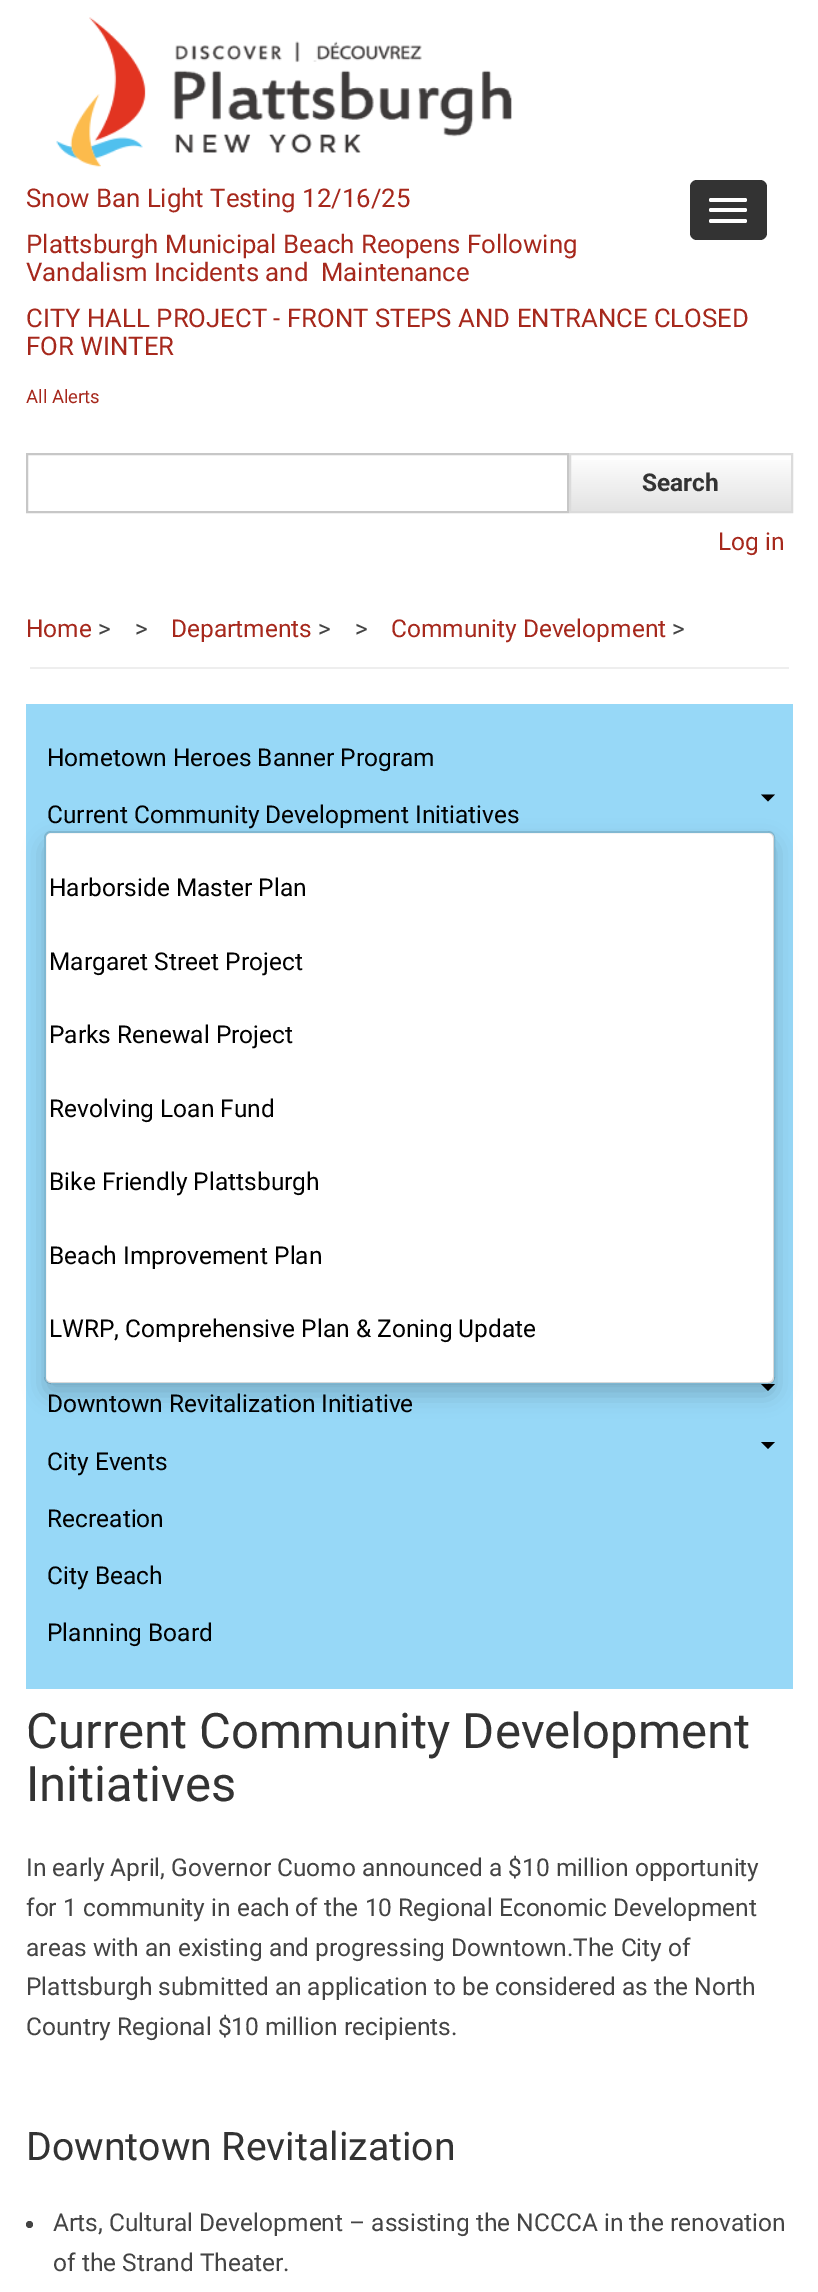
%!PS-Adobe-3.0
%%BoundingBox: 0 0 818 2292
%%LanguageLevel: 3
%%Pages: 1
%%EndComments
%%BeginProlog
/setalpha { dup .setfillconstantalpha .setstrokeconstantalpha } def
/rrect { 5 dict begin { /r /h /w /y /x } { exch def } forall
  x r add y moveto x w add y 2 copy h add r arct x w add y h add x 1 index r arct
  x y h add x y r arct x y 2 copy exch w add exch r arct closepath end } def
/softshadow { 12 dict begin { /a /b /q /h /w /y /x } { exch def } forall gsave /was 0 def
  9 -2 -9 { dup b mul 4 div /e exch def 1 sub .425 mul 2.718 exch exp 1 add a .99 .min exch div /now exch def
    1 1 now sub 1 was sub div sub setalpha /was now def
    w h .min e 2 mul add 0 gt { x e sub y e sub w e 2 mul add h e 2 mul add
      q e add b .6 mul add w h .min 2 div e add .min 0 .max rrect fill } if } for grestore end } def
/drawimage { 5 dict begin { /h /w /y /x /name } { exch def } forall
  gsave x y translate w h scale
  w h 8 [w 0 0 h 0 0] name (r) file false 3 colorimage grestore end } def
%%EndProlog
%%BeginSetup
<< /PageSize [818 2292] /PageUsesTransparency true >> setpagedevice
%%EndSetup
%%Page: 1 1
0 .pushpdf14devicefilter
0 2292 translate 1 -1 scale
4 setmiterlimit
1 setgray
0 0 818 2292 rectfill
(images/1.raw) 56 17 456 150 drawimage
0.2 setgray
690 180 77 60 7 rrect fill
1 setgray
709 198 38 4 2 rrect fill
709 208 38 4 2 rrect fill
709 219 38 4 2 rrect fill
0.78 setgray
2 setlinewidth
27 454 541 58 rectstroke
gsave newpath 571 460 moveto 791 460 lineto 791 511 lineto 571 511 lineto closepath clip newpath
<< /ShadingType 2 /ColorSpace /DeviceRGB /Coords [681 455 681 511] /Extend [true true] /Function << /FunctionType 2 /Domain [0 1] /C0 [1 1 1] /C1 [0.89 0.89 0.89] /N 1 >> >> shfill grestore
0.859 setgray
570 454 222 58 rectstroke
0.933 setgray
30 667 759 2 rectfill
0.592 0.847 0.969 setrgbcolor
26 704 767 985 rectfill
0 setgray
newpath 761 794.5 moveto 775 794.5 lineto 768 801.5 lineto closepath fill
newpath 761 1384 moveto 775 1384 lineto 768 1391 lineto closepath fill
gsave
newpath 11 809 moveto 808 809 lineto 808 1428 lineto 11 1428 lineto closepath 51 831 moveto 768 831 lineto 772 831 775 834 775 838 curveto 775 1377 lineto 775 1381 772 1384 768 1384 curveto 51 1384 lineto 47 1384 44 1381 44 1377 curveto 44 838 lineto 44 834 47 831 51 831 curveto closepath eoclip newpath
44 842 731 553 7 10.5 0.18 softshadow
grestore
1 setgray
46 833 728 550 5 rrect fill
0.15 setalpha
0 setgray
45 832 729 551 6 rrect stroke
1 setalpha
newpath 761 1442 moveto 775 1442 lineto 768 1449 lineto closepath fill
0.267 setgray
newpath 29.5 2224.5 3.5 0 360 arc closepath fill
/Roboto-Regular [25.75 0 0 -25.75 0 0] selectfont
0.651 0.157 0.11 setrgbcolor
26 207 moveto (Snow Ban Light Testing 12/16/25) show
26 253 moveto (Plattsburgh Municipal Beach Reopens Following) show
26 281 moveto (Vandalism Incidents and) show
321 281 moveto (Maintenance) show
26 327 moveto (CITY HALL PROJECT - FRONT STEPS AND ENTRANCE CLOSED) show
26 355 moveto (FOR WINTER) show
/Roboto-Regular [18.5 0 0 -18.5 0 0] selectfont
26 403 moveto (All Alerts) show
/Roboto-Bold [24.5 0 0 -24.5 0 0] selectfont
0.2 setgray
642 491 moveto (Search) show
/Roboto-Regular [24.5 0 0 -24.5 0 0] selectfont
0.651 0.157 0.11 setrgbcolor
718 550 moveto (Log in) show
26 637 moveto (Home) show
0.267 setgray
98 637 moveto (>) show
135 637 moveto (>) show
0.651 0.157 0.11 setrgbcolor
171 637 moveto (Departments) show
0.267 setgray
318 637 moveto (>) show
355 637 moveto (>) show
0.651 0.157 0.11 setrgbcolor
391 637 moveto (Community Development) show
0.267 setgray
672 637 moveto (>) show
0 setgray
47 766 moveto (Hometown Heroes Banner Program) show
47 823 moveto (Current Community Development Initiatives) show
49 896 moveto (Harborside Master Plan) show
49 970 moveto (Margaret Street Project) show
49 1043 moveto (Parks Renewal Project) show
49 1117 moveto (Revolving Loan Fund) show
49 1190 moveto (Bike Friendly Plattsburgh) show
49 1264 moveto (Beach Improvement Plan) show
49 1337 moveto (LWRP, Comprehensive Plan & Zoning Update) show
47 1412 moveto (Downtown Revitalization Initiative) show
47 1470 moveto (City Events) show
47 1527 moveto (Recreation) show
47 1584 moveto (City Beach) show
47 1641 moveto (Planning Board) show
/Roboto-Regular [49 0 0 -49 0 0] selectfont
0.2 setgray
26 1748 moveto (Current Community Development) show
26 1801 moveto (Initiatives) show
/Roboto-Regular [24.5 0 0 -24.5 0 0] selectfont
0.267 setgray
26 1876 moveto (In early April, Governor Cuomo announced a $10 million opportunity) show
26 1916 moveto (for 1 community in each of the 10 Regional Economic Development) show
26 1956 moveto (areas with an existing and progressing Downtown.The City of) show
26 1995 moveto (Plattsburgh submitted an application to be considered as the North) show
26 2035 moveto (Country Regional $10 million recipients.) show
/Roboto-Regular [39.25 0 0 -39.25 0 0] selectfont
0.2 setgray
26 2160 moveto (Downtown Revitalization) show
/Roboto-Regular [24.5 0 0 -24.5 0 0] selectfont
0.267 setgray
53 2231 moveto (Arts, Cultural Development – assisting the NCCCA in the renovation) show
53 2271 moveto (of the Strand Theater.) show
.poppdf14devicefilter showpage
%%EOF
